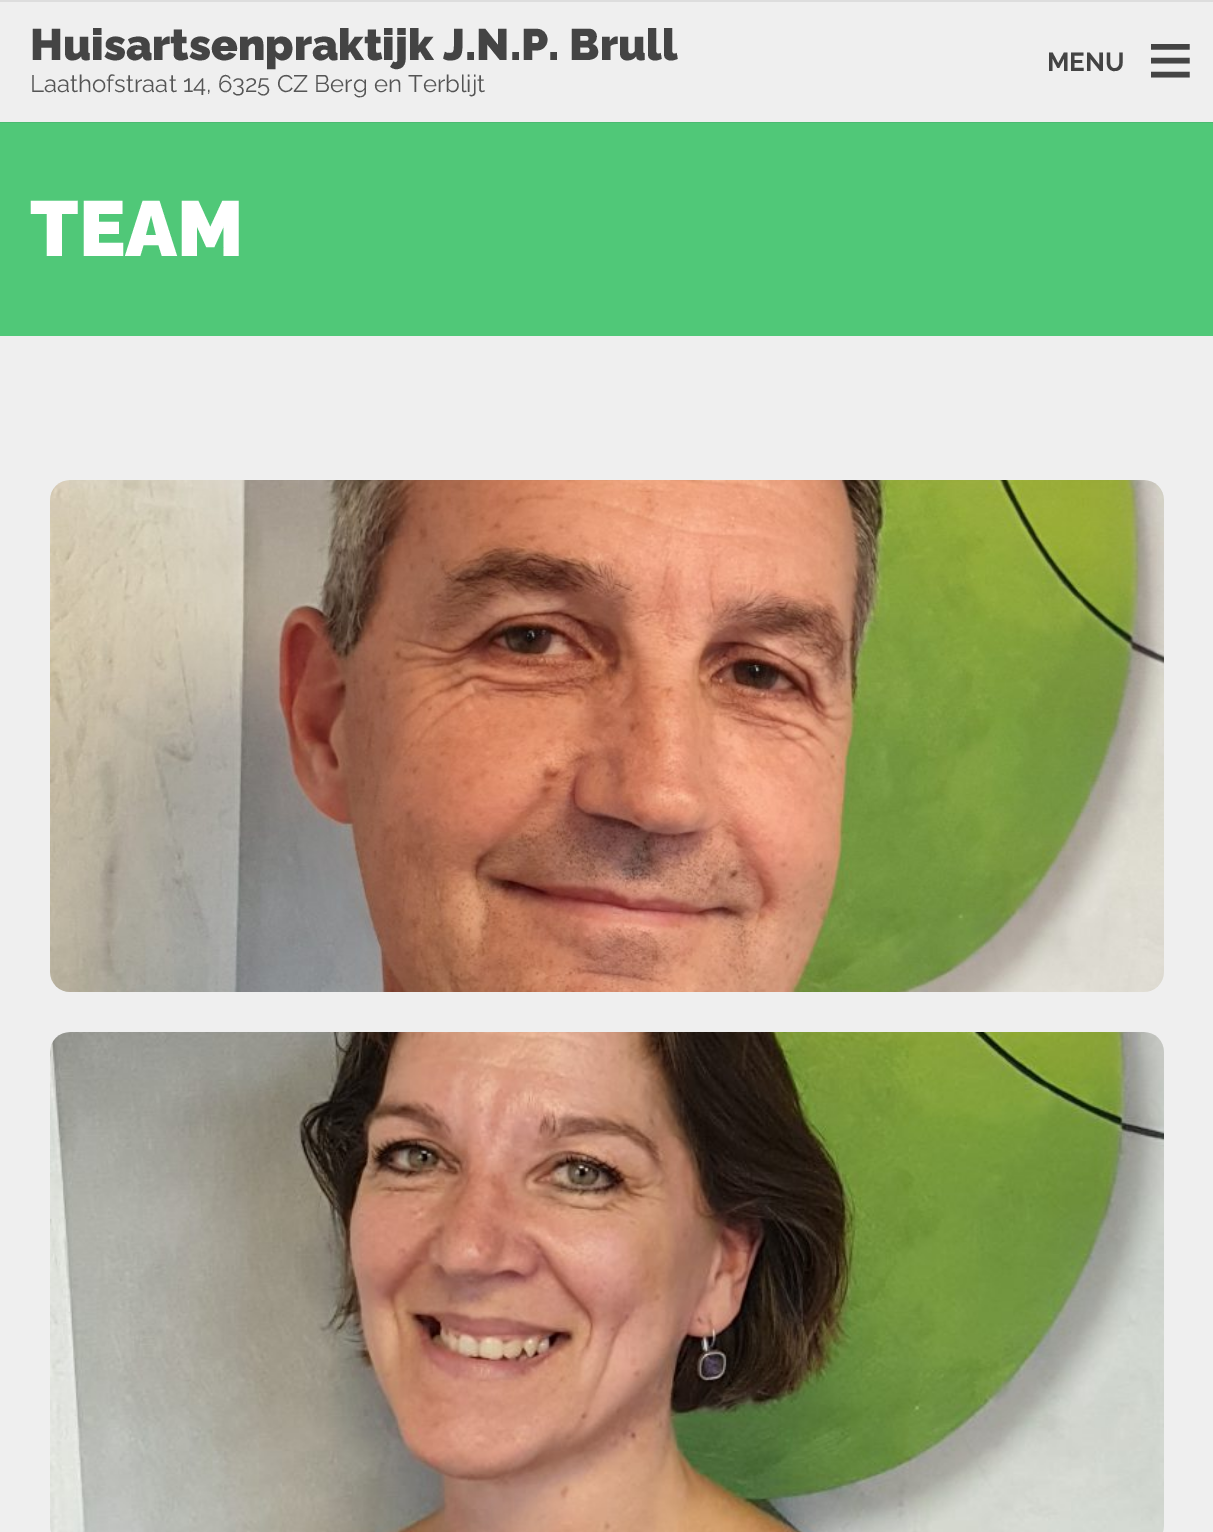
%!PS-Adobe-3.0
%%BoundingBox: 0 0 1213 1532
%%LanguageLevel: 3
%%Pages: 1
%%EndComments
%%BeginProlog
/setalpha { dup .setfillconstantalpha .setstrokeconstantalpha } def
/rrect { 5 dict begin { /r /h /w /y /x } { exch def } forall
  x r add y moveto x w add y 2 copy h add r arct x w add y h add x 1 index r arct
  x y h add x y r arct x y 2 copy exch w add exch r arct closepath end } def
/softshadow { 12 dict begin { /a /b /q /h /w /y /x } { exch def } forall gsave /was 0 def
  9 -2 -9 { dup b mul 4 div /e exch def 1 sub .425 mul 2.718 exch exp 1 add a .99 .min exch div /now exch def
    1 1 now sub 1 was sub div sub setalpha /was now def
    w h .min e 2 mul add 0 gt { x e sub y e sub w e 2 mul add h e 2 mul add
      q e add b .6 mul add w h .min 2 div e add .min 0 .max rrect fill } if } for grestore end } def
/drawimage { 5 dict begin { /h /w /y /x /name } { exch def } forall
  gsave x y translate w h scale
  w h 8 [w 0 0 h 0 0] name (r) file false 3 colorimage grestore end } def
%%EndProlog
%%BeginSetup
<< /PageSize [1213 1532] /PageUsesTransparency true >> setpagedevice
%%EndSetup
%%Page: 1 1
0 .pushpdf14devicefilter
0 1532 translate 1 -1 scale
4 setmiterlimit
0.937 setgray
0 0 1213 1532 rectfill
0.314 0.784 0.471 setrgbcolor
0 122 1213 214 rectfill
gsave
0 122 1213 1 rectclip
0 setgray
0 0 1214 122 0 1 0.2 softshadow
grestore
0.867 setgray
0 0 1213 2 rectfill
(images/1.raw) 50 480 1114 512 drawimage
(images/2.raw) 50 1032 1114 500 drawimage
/Raleway-Black [44 0 0 -44 0 0] selectfont
0.267 setgray
30 60 moveto (Huisartsenpraktijk J.N.P. Brull) show
/Raleway-Regular [24 0 0 -24 0 0] selectfont
0.333 setgray
30 92 moveto (Laathofstraat 14, 6325 CZ Berg en Terblijt) show
/Raleway-Bold [26 0 0 -26 0 0] selectfont
0.267 setgray
1047 71 moveto (MENU) show
/LiberationSans-Bold [80 0 0 -80 0 0] selectfont
1147 87 moveto (≡) show
/Raleway-Black [78 0 0 -78 0 0] selectfont
1 setgray
30 256 moveto (TEAM) show
.poppdf14devicefilter showpage
%%EOF
